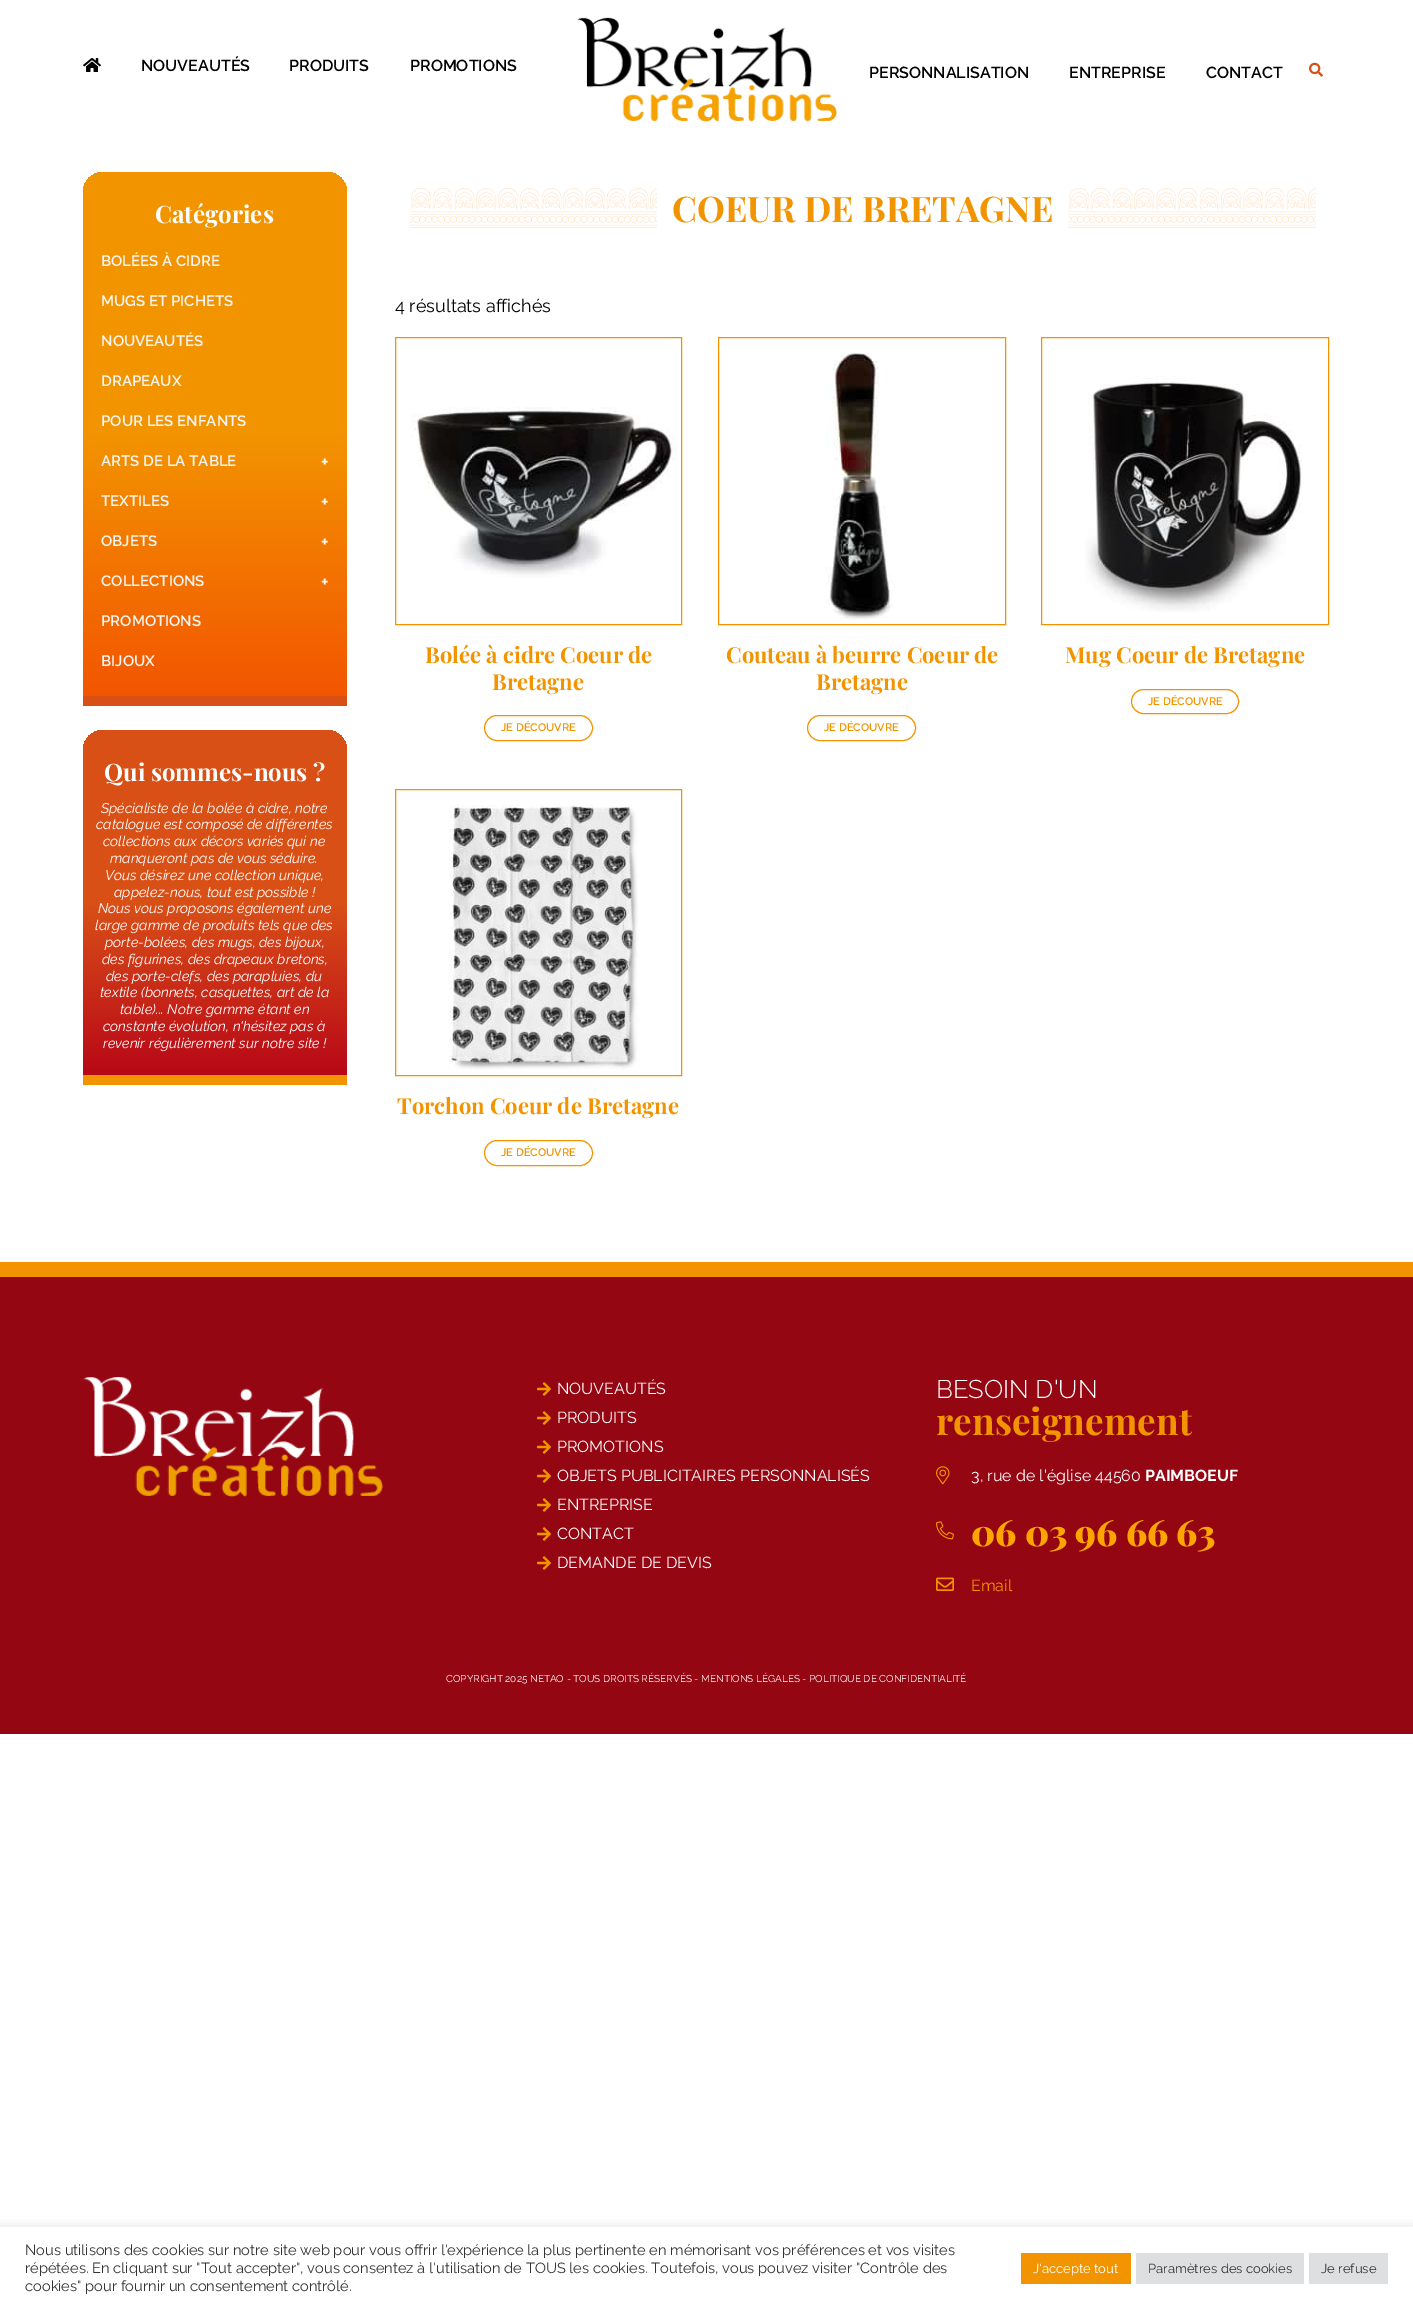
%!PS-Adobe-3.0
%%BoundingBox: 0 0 1413 2309
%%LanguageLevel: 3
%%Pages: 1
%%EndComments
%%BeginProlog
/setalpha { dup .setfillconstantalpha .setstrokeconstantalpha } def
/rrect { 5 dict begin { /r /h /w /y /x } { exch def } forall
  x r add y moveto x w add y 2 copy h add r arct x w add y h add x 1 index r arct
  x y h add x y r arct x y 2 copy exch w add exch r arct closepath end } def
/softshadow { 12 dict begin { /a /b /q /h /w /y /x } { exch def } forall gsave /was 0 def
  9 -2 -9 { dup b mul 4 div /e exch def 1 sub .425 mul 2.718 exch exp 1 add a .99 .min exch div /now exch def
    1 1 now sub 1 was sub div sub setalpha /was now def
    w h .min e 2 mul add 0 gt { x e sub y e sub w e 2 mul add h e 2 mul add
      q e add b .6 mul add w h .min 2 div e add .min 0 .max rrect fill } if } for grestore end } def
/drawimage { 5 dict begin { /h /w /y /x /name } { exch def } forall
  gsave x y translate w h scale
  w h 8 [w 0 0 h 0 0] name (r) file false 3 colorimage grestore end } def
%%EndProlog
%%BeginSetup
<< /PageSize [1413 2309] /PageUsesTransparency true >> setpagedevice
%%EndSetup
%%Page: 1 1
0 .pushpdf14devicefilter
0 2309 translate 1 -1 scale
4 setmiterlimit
1 setgray
0 0 1413 2309 rectfill
(images/1.raw) 577 17 260 105 drawimage
(images/2.raw) 83 58 18 14 drawimage
(images/3.raw) 1309 62 14 15 drawimage
gsave newpath 103 172 moveto 327 172 lineto 338 172 347 181 347 192 curveto 347 696 lineto 83 696 lineto 83 192 lineto 83 181 92 172 103 172 curveto closepath clip newpath
<< /ShadingType 2 /ColorSpace /DeviceRGB /Coords [215 172 215 696] /Extend [true true] /Function << /FunctionType 3 /Domain [0 1] /Functions [<< /FunctionType 2 /Domain [0 1] /C0 [0.949 0.58 0] /C1 [0.949 0.58 0] /N 1 >> << /FunctionType 2 /Domain [0 1] /C0 [0.949 0.58 0] /C1 [0.949 0.333 0] /N 1 >>] /Bounds [0.5] /Encode [0 1 0 1] >> >> shfill grestore
0.851 0.314 0.09 setrgbcolor
83 696 264 10 rectfill
gsave newpath 103 730 moveto 327 730 lineto 338 730 347 739 347 750 curveto 347 1075 lineto 83 1075 lineto 83 750 lineto 83 739 92 730 103 730 curveto closepath clip newpath
<< /ShadingType 2 /ColorSpace /DeviceRGB /Coords [215 730 215 1075] /Extend [true true] /Function << /FunctionType 3 /Domain [0 1] /Functions [<< /FunctionType 2 /Domain [0 1] /C0 [0.851 0.314 0.09] /C1 [0.851 0.314 0.09] /N 1 >> << /FunctionType 2 /Domain [0 1] /C0 [0.851 0.314 0.09] /C1 [0.722 0.027 0.094] /N 1 >>] /Bounds [0.5] /Encode [0 1 0 1] >> >> shfill grestore
0.949 0.58 0 setrgbcolor
83 1075 264 10 rectfill
(images/4.raw) 410 188 247 40 drawimage
(images/5.raw) 1068 188 248 40 drawimage
395.5 337.5 286 287 rectstroke
(images/6.raw) 411 407 266 171 drawimage
484.5 715.5 108 25 12.5 rrect stroke
718.5 337.5 287 287 rectstroke
(images/7.raw) 826 353 67 267 drawimage
807.5 715.5 108 25 12.5 rrect stroke
1041.5 337.5 287 287 rectstroke
(images/8.raw) 1085 376 217 236 drawimage
1131.5 689.5 107 24 12 rrect stroke
395.5 789.5 286 286 rectstroke
(images/9.raw) 449 805 190 265 drawimage
484.5 1140.5 108 25 12.5 rrect stroke
0.584 0.024 0.075 setrgbcolor
0 1277 1413 457 rectfill
0.949 0.58 0 setrgbcolor
0 1262 1413 15 rectfill
(images/10.raw) 83 1377 300 120 drawimage
(images/11.raw) 537 1382 14 14 drawimage
(images/11.raw) 537 1411 14 14 drawimage
(images/11.raw) 537 1440 14 14 drawimage
(images/11.raw) 537 1469 14 14 drawimage
(images/11.raw) 537 1498 14 14 drawimage
(images/11.raw) 537 1527 14 14 drawimage
(images/11.raw) 537 1556 14 14 drawimage
(images/12.raw) 936 1466 14 19 drawimage
(images/13.raw) 936 1521 18 19 drawimage
(images/14.raw) 936 1577 18 14 drawimage
gsave
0 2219 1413 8 rectclip
0.675 0.671 0.671 setrgbcolor
0 2226 1413 82 0 5 0.3 softshadow
grestore
1021 2253 110 31 rectfill
0.871 0.875 0.878 setrgbcolor
1136 2253 168 31 rectfill
1309 2253 79 31 rectfill
/Raleway-SemiBold [16 0 0 -16 0 0] selectfont
0 setgray
141 71 moveto (NOUVEAUTÉS) show
289 71 moveto (PRODUITS) show
410 71 moveto (PROMOTIONS) show
869 78 moveto (PERSONNALISATION) show
1069 78 moveto (ENTREPRISE) show
1206 78 moveto (CONTACT) show
/PlayfairDisplay-Bold [24 0 0 -24 0 0] selectfont
1 setgray
155 223 moveto (Catégories) show
/Raleway-SemiBold [15 0 0 -15 0 0] selectfont
0.961 setgray
101 266 moveto (BOLÉES À CIDRE) show
101 306 moveto (MUGS ET PICHETS) show
101 346 moveto (NOUVEAUTÉS) show
101 386 moveto (DRAPEAUX) show
101 426 moveto (POUR LES ENFANTS) show
101 466 moveto (ARTS DE LA TABLE) show
/Raleway-Bold [18 0 0 -18 0 0] selectfont
321 468 moveto (+) show
/Raleway-SemiBold [15 0 0 -15 0 0] selectfont
101 506 moveto (TEXTILES) show
/Raleway-Bold [18 0 0 -18 0 0] selectfont
321 508 moveto (+) show
/Raleway-SemiBold [15 0 0 -15 0 0] selectfont
101 546 moveto (OBJETS) show
/Raleway-Bold [18 0 0 -18 0 0] selectfont
321 548 moveto (+) show
/Raleway-SemiBold [15 0 0 -15 0 0] selectfont
101 586 moveto (COLLECTIONS) show
/Raleway-Bold [18 0 0 -18 0 0] selectfont
321 588 moveto (+) show
/Raleway-SemiBold [15 0 0 -15 0 0] selectfont
101 626 moveto (PROMOTIONS) show
101 666 moveto (BIJOUX) show
/PlayfairDisplay-Bold [24 0 0 -24 0 0] selectfont
1 setgray
104 781 moveto (Qui sommes-nous ?) show
/Raleway-Italic [14 0 0 -14 0 0] selectfont
101 813 moveto (Spécialiste de la bolée à cidre, notre) show
96 829 moveto (catalogue est composé de différentes) show
103 846 moveto (collections aux décors variés qui ne) show
110 863 moveto (manqueront pas de vous séduire.) show
105 880 moveto (Vous désirez une collection unique,) show
114 897 moveto (appelez-nous, tout est possible !) show
98 913 moveto (Nous vous proposons également une) show
95 930 moveto (large gamme de produits tels que des) show
105 947 moveto (porte-bolées, des mugs, des bijoux,) show
102 964 moveto (des figurines, des drapeaux bretons,) show
106 981 moveto (des porte-clefs, des parapluies, du) show
100 997 moveto (textile \(bonnets, casquettes, art de la) show
120 1014 moveto (table\)... Notre gamme étant en) show
103 1031 moveto (constante évolution, n'hésitez pas à) show
103 1048 moveto (revenir régulièrement sur notre site !) show
/PlayfairDisplay-Bold [35.25 0 0 -35.25 0 0] selectfont
0.949 0.58 0 setrgbcolor
672 222 moveto (COEUR DE BRETAGNE) show
/Raleway-Regular [18 0 0 -18 0 0] selectfont
0 setgray
395 312 moveto (4 résultats affichés) show
/PlayfairDisplay-Bold [22 0 0 -22 0 0] selectfont
0.949 0.58 0 setrgbcolor
425 663 moveto (Bolée à cidre Coeur de) show
492 690 moveto (Bretagne) show
/Raleway-SemiBold [11 0 0 -11 0 0] selectfont
501 731 moveto (JE DÉCOUVRE) show
/PlayfairDisplay-Bold [22 0 0 -22 0 0] selectfont
726 663 moveto (Couteau à beurre Coeur de) show
816 690 moveto (Bretagne) show
/Raleway-SemiBold [11 0 0 -11 0 0] selectfont
824 731 moveto (JE DÉCOUVRE) show
/PlayfairDisplay-Bold [22 0 0 -22 0 0] selectfont
1065 663 moveto (Mug Coeur de Bretagne) show
/Raleway-SemiBold [11 0 0 -11 0 0] selectfont
1148 705 moveto (JE DÉCOUVRE) show
/PlayfairDisplay-Bold [22 0 0 -22 0 0] selectfont
397 1114 moveto (Torchon Coeur de Bretagne) show
/Raleway-SemiBold [11 0 0 -11 0 0] selectfont
501 1156 moveto (JE DÉCOUVRE) show
/Raleway-Regular [16 0 0 -16 0 0] selectfont
1 setgray
557 1394 moveto (NOUVEAUTÉS) show
557 1423 moveto (PRODUITS) show
557 1452 moveto (PROMOTIONS) show
557 1481 moveto (OBJETS PUBLICITAIRES PERSONNALISÉS) show
557 1510 moveto (ENTREPRISE) show
557 1539 moveto (CONTACT) show
557 1568 moveto (DEMANDE DE DEVIS) show
/Raleway-Light [25.5 0 0 -25.5 0 0] selectfont
936 1398 moveto (BESOIN D'UN) show
/PlayfairDisplay-Bold [37 0 0 -37 0 0] selectfont
0.949 0.58 0 setrgbcolor
936 1435 moveto (renseignement) show
/Raleway-Regular [16 0 0 -16 0 0] selectfont
1 setgray
971 1481 moveto (3, rue de l'église 44560) show
/Raleway-Bold [16 0 0 -16 0 0] selectfont
1145 1481 moveto (PAIMBOEUF) show
/PlayfairDisplay-Black [36 0 0 -36 0 0] selectfont
1 0.647 0 setrgbcolor
971 1546 moveto (06 03 96 66 63) show
/Raleway-Regular [16 0 0 -16 0 0] selectfont
0.949 0.58 0 setrgbcolor
971 1591 moveto (Email) show
/Raleway-Regular [10 0 0 -10 0 0] selectfont
1 setgray
446 1682 moveto (COPYRIGHT 2025 NETAO - TOUS DROITS RÉSERVÉS - MENTIONS LÉGALES - POLITIQUE DE CONFIDENTIALITÉ) show
/Raleway-Regular [14.67 0 0 -14.67 0 0] selectfont
0.2 setgray
25 2255 moveto (Nous utilisons des cookies sur notre site web pour vous offrir l'expérience la plus pertinente en mémorisant vos préférences et vos visites) show
25 2273 moveto (répétées. En cliquant sur "Tout accepter", vous consentez à l'utilisation de TOUS les cookies. Toutefois, vous pouvez visiter "Contrôle des) show
25 2291 moveto (cookies" pour fournir un consentement contrôlé.) show
/Raleway-Regular [13 0 0 -13 0 0] selectfont
1 setgray
1033 2273 moveto (J'accepte tout) show
0.2 setgray
1148 2273 moveto (Paramètres des cookies) show
1321 2273 moveto (Je refuse) show
.poppdf14devicefilter showpage
%%EOF
